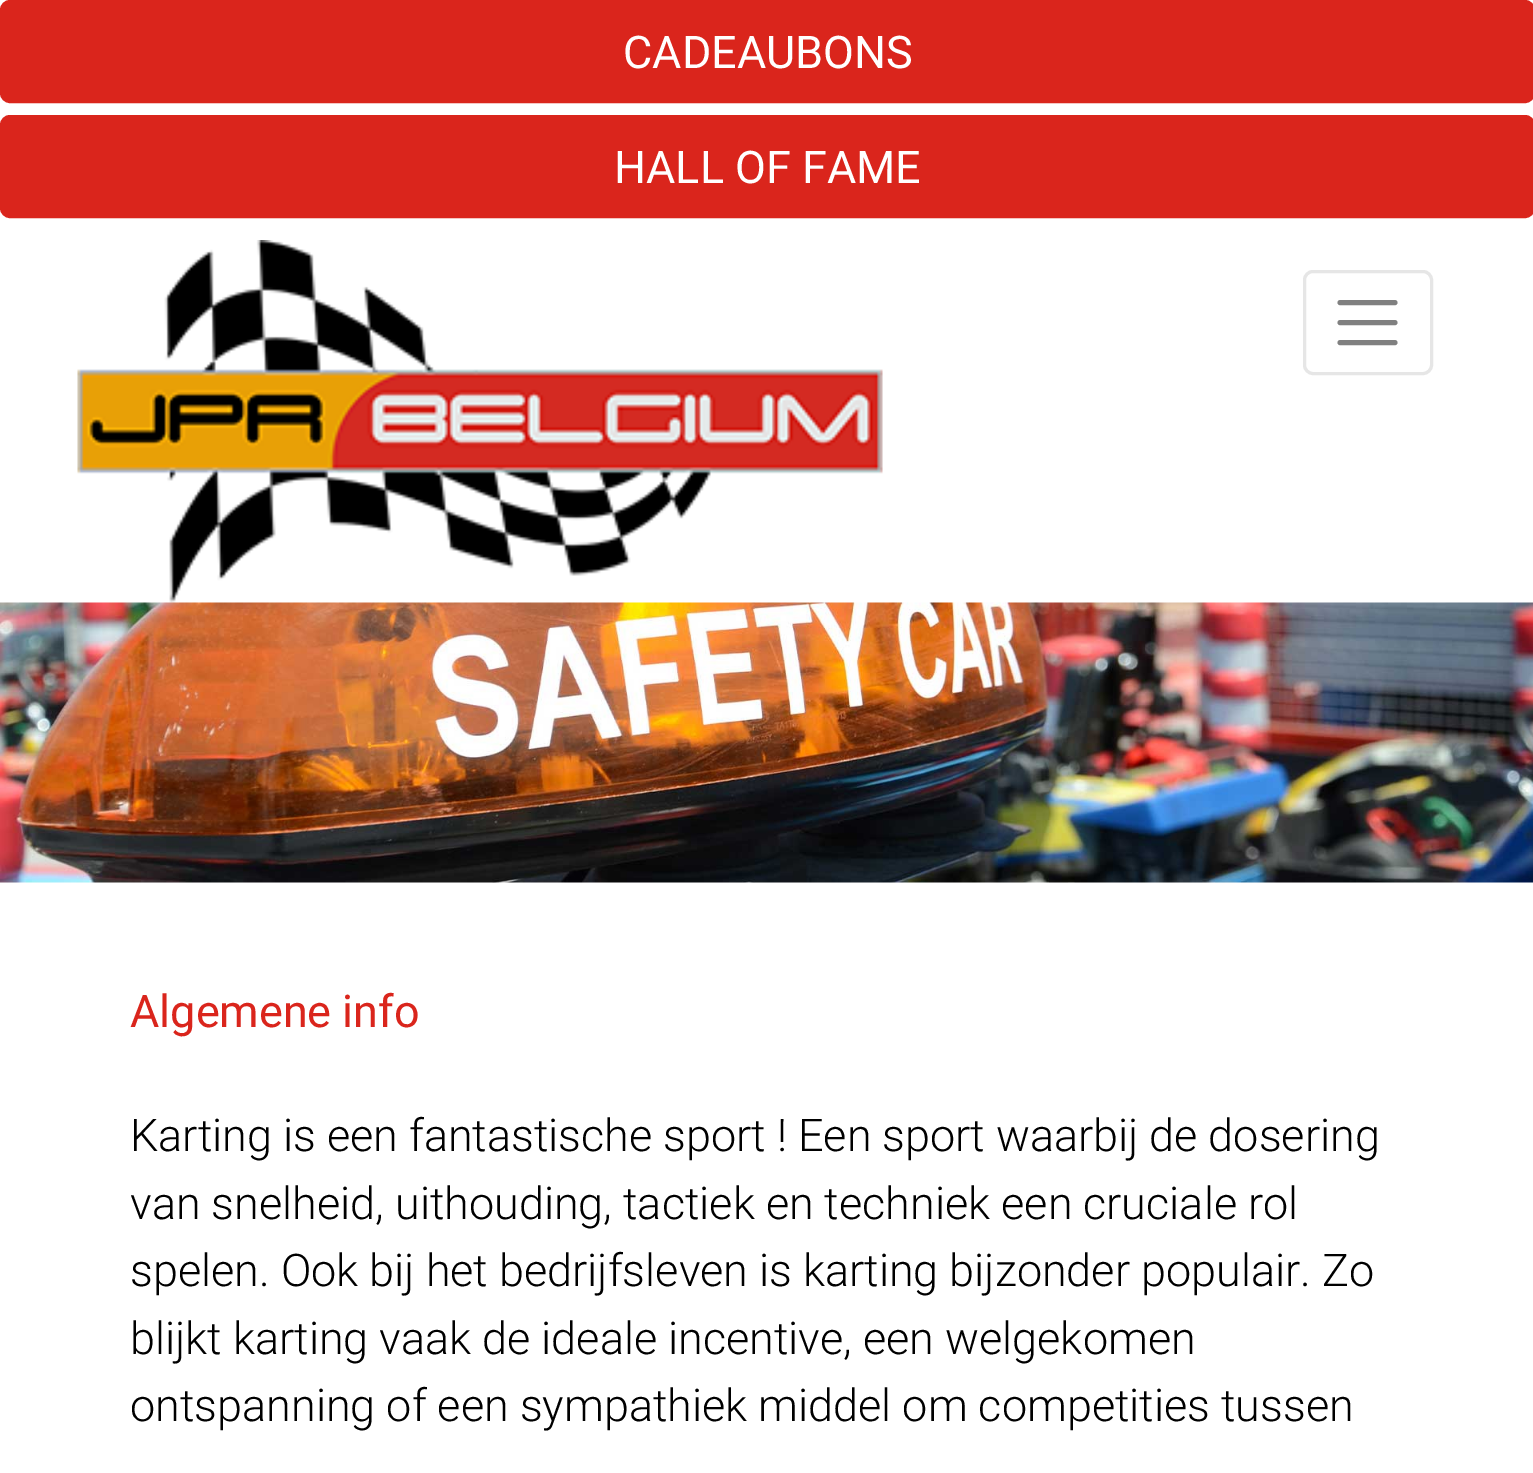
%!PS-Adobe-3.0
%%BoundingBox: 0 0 1533 1473
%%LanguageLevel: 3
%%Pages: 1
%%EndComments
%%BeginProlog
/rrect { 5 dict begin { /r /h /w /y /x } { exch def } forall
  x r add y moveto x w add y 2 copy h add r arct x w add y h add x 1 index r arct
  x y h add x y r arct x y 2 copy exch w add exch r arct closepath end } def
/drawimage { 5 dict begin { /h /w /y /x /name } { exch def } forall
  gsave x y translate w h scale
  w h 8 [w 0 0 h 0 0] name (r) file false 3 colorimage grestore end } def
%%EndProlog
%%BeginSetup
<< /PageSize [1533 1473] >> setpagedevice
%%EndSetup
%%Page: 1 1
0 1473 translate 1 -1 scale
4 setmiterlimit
1 setgray
0 0 1533 1473 rectfill
0.855 0.145 0.11 setrgbcolor
1.5 1.5 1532 100 8.5 rrect gsave fill grestore
3 setlinewidth
stroke
1.5 116.5 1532 100 8.5 rrect gsave fill grestore
stroke
(images/2.raw) 0 602 1533 281 drawimage
(images/1.raw) 77 240 806 363 drawimage
0.902 setgray
1304.5 271.5 127 102 8.5 rrect stroke
0.502 setgray
5 setlinewidth
1 setlinecap
newpath 1340 302.5 moveto 1395 302.5 lineto 1340 322.5 moveto 1395 322.5 lineto 1340 342.5 moveto 1395 342.5 lineto stroke
/Roboto-Regular [45 0 0 -45 0 0] selectfont
1 setgray
623 68 moveto (CADEAUBONS) show
614 183 moveto (HALL OF FAME) show
0.855 0.145 0.11 setrgbcolor
130 1027 moveto (Algemene info) show
/Roboto-Light [45 0 0 -45 0 0] selectfont
0 setgray
130 1151 moveto (Karting is een fantastische sport ! Een sport waarbij de dosering) show
130 1219 moveto (van snelheid, uithouding, tactiek en techniek een cruciale rol) show
130 1286 moveto (spelen. Ook bij het bedrijfsleven is karting bijzonder populair. Zo) show
130 1354 moveto (blijkt karting vaak de ideale incentive, een welgekomen) show
130 1421 moveto (ontspanning of een sympathiek middel om competities tussen) show
showpage
%%EOF
